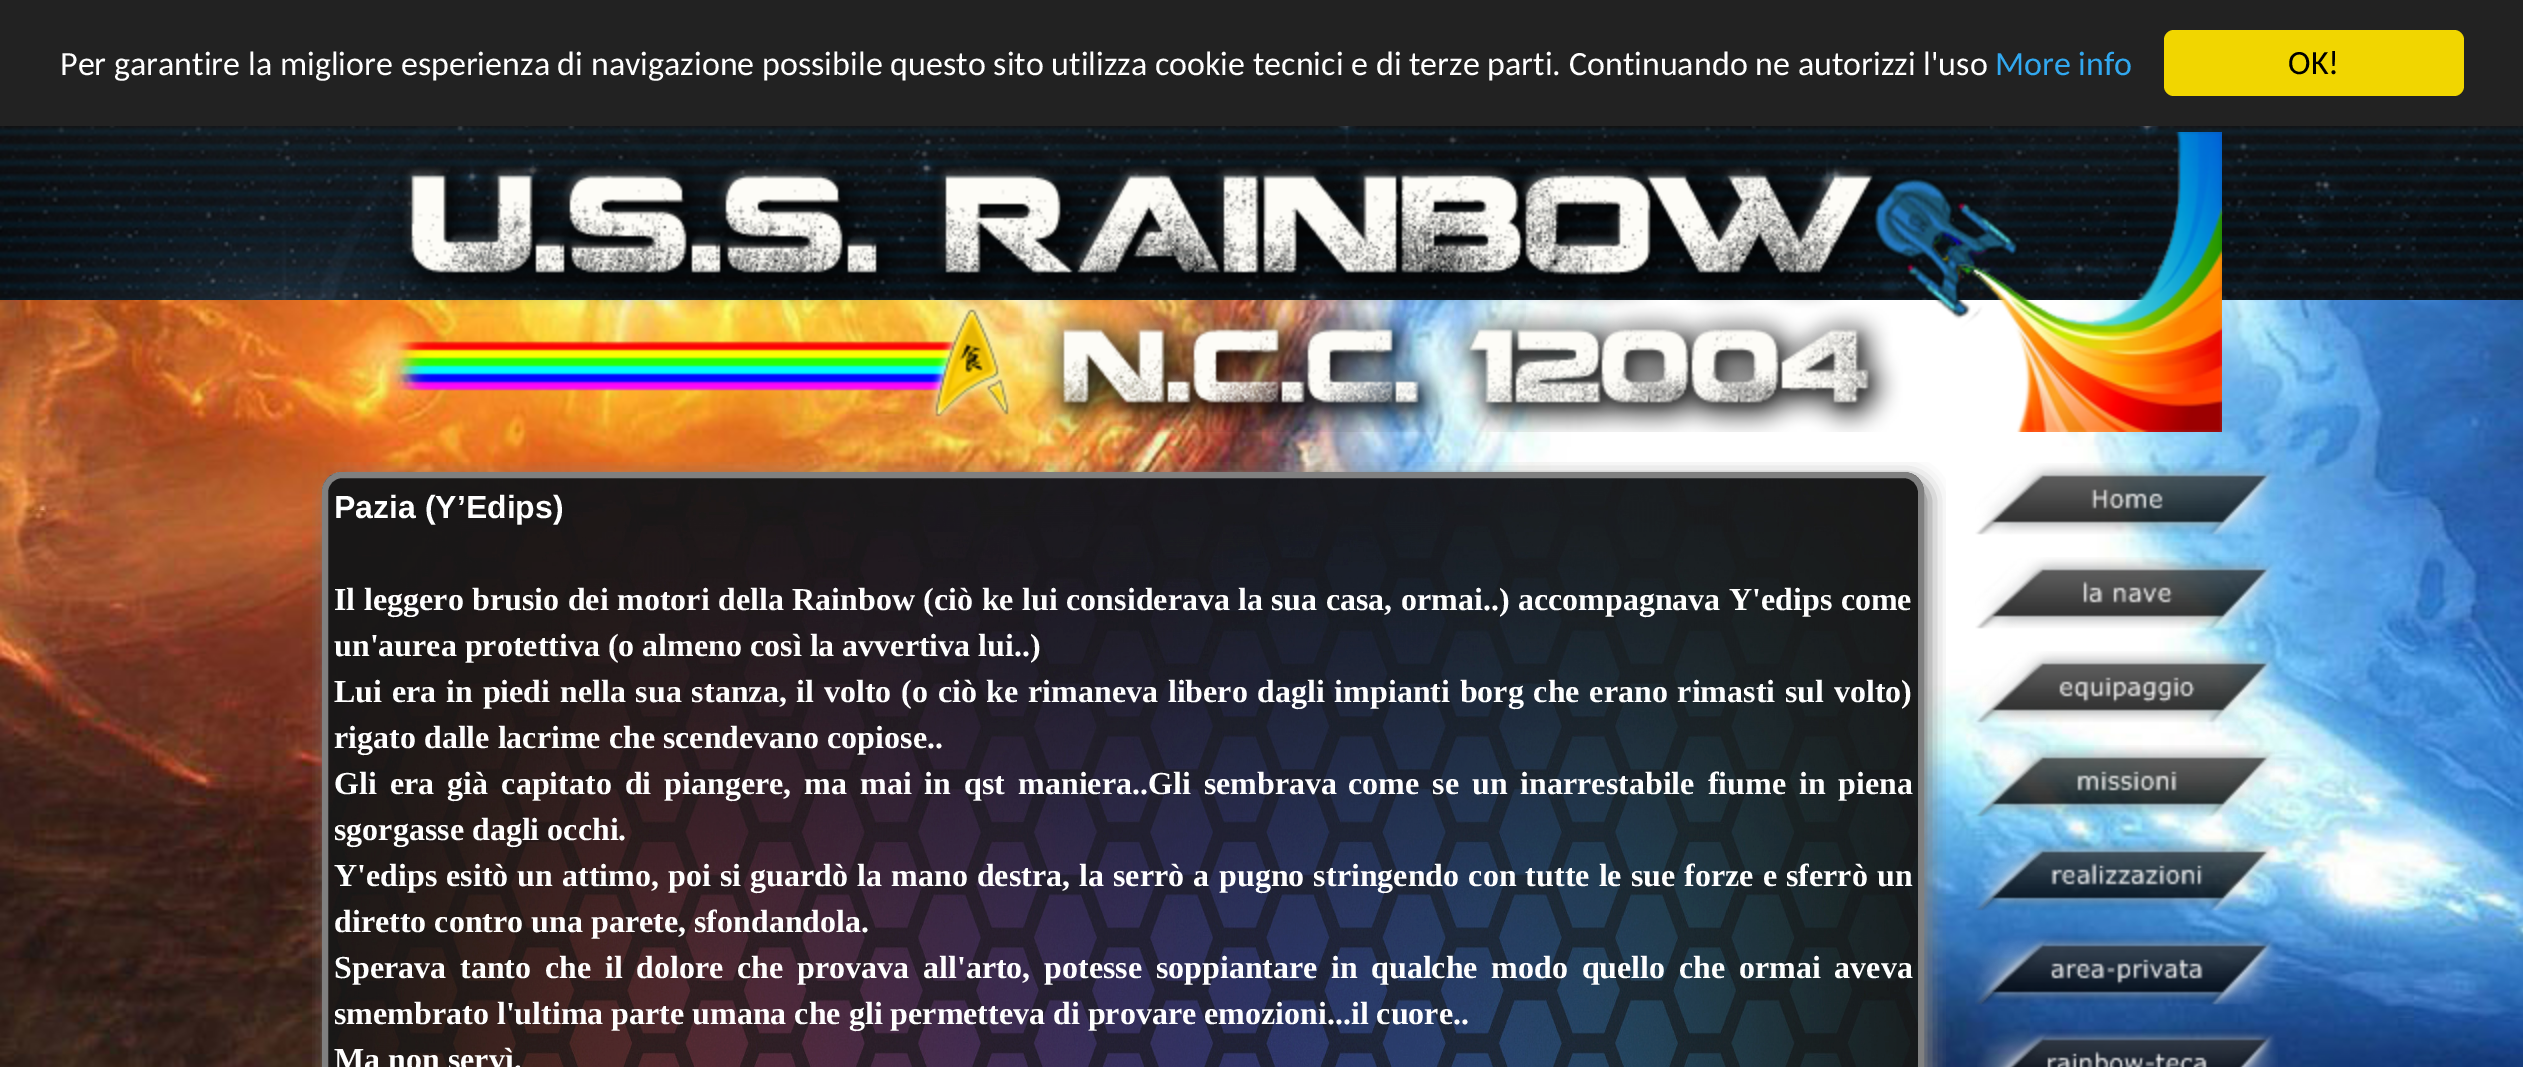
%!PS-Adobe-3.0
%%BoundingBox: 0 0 2523 1067
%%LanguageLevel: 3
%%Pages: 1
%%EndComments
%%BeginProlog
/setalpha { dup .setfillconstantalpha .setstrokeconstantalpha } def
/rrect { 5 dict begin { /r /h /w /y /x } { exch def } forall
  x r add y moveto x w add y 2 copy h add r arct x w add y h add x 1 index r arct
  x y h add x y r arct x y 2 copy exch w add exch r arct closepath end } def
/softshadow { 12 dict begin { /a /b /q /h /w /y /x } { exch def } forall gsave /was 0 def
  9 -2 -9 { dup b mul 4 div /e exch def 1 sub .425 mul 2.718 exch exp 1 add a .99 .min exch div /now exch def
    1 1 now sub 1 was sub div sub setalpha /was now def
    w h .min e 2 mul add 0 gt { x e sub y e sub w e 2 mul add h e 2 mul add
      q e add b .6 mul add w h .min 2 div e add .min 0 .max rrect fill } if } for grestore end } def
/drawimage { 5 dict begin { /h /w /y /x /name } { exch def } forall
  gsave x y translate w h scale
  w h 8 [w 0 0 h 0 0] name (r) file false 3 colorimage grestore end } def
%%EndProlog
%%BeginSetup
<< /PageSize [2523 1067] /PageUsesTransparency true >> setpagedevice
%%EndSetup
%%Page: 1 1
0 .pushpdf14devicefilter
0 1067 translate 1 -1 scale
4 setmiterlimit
1 setgray
0 0 2523 1067 rectfill
(images/1.raw) 0 300 2523 767 drawimage
0.133 setgray
0 0 2523 126 rectfill
0.945 0.839 0 setrgbcolor
2164 30 300 66 10 rrect fill
(images/2.raw) 0 126 2523 174 drawimage
(images/3.raw) 390 132 1832 300 drawimage
(images/4.raw) 322 472 1602 595 drawimage
gsave
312 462 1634 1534 rectclip
newpath 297 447 moveto 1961 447 lineto 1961 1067 lineto 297 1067 lineto closepath 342 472 moveto 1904 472 lineto 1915 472 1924 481 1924 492 curveto 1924 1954 lineto 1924 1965 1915 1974 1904 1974 curveto 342 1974 lineto 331 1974 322 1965 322 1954 curveto 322 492 lineto 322 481 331 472 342 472 curveto closepath eoclip newpath
0.502 setgray
328 478 1602 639 20 10 1 softshadow
grestore
0.502 setgray
6 setlinewidth
325 475 1596 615 17 rrect stroke
(images/5.raw) 1975 463 302 72 drawimage
(images/6.raw) 1975 557 302 72 drawimage
(images/7.raw) 1975 651 301 72 drawimage
(images/8.raw) 1975 745 300 72 drawimage
(images/9.raw) 1975 839 301 72 drawimage
(images/10.raw) 1975 933 303 72 drawimage
(images/11.raw) 1977 1029 301 38 drawimage
/Carlito-Regular [34 0 0 -34 0 0] selectfont
1 setgray
60 75 moveto (Per garantire la migliore esperienza di navigazione possibile questo sito utilizza cookie tecnici e di terze parti. Continuando ne autorizzi l'uso) show
0.192 0.659 0.941 setrgbcolor
1995 75 moveto (More info) show
0 setgray
2288 74 moveto (OK!) show
/LiberationSans-Bold [32 0 0 -32 0 0] selectfont
1 setgray
334 518 moveto (Pazia \(Y’Edips\)) show
/LiberationSerif-Bold [32 0 0 -32 0 0] selectfont
334 610 moveto (Il) show
364 610 moveto 0.5 0 32 (leggero brusio dei motori della Rainbow \(ciò ke lui considerava la) widthshow
1271 610 moveto 0.5 0 32 (sua casa, ormai..\) accompagnava Y'edips come) widthshow
334 656 moveto (un'aurea protettiva \(o almeno così la avvertiva lui..\)) show
334 702 moveto (Lui) show
392 702 moveto 1.75 0 32 (era in piedi nella sua stanza, il volto \(o ciò ke rimaneva libero) widthshow
1257 702 moveto 1.75 0 32 (dagli impianti borg che erano rimasti sul volto\)) widthshow
334 748 moveto (rigato dalle lacrime che scendevano copiose..) show
334 794 moveto (Gli) show
390 794 moveto 5 0 32 (era già capitato di piangere, ma mai in qst maniera..Gli sembrava) widthshow
1348 794 moveto 5 0 32 (come se un inarrestabile fiume in piena) widthshow
334 840 moveto (sgorgasse dagli occhi.) show
334 886 moveto (Y'edips) show
446 886 moveto 1.1 0 32 (esitò un attimo, poi si guardò la mano destra, la serrò a) widthshow
1219 886 moveto 1.1 0 32 (pugno stringendo con tutte le sue forze e sferrò un) widthshow
334 932 moveto (diretto contro una parete, sfondandola.) show
334 978 moveto (Sperava) show
460 978 moveto 5.75 0 32 (tanto che il dolore che provava all'arto, potesse soppiantare in) widthshow
1371 978 moveto 5.75 0 32 (qualche modo quello che ormai aveva) widthshow
334 1024 moveto (smembrato l'ultima parte umana che gli permetteva di provare emozioni...il cuore..) show
334 1070 moveto (Ma non servì.) show
.poppdf14devicefilter showpage
%%EOF
